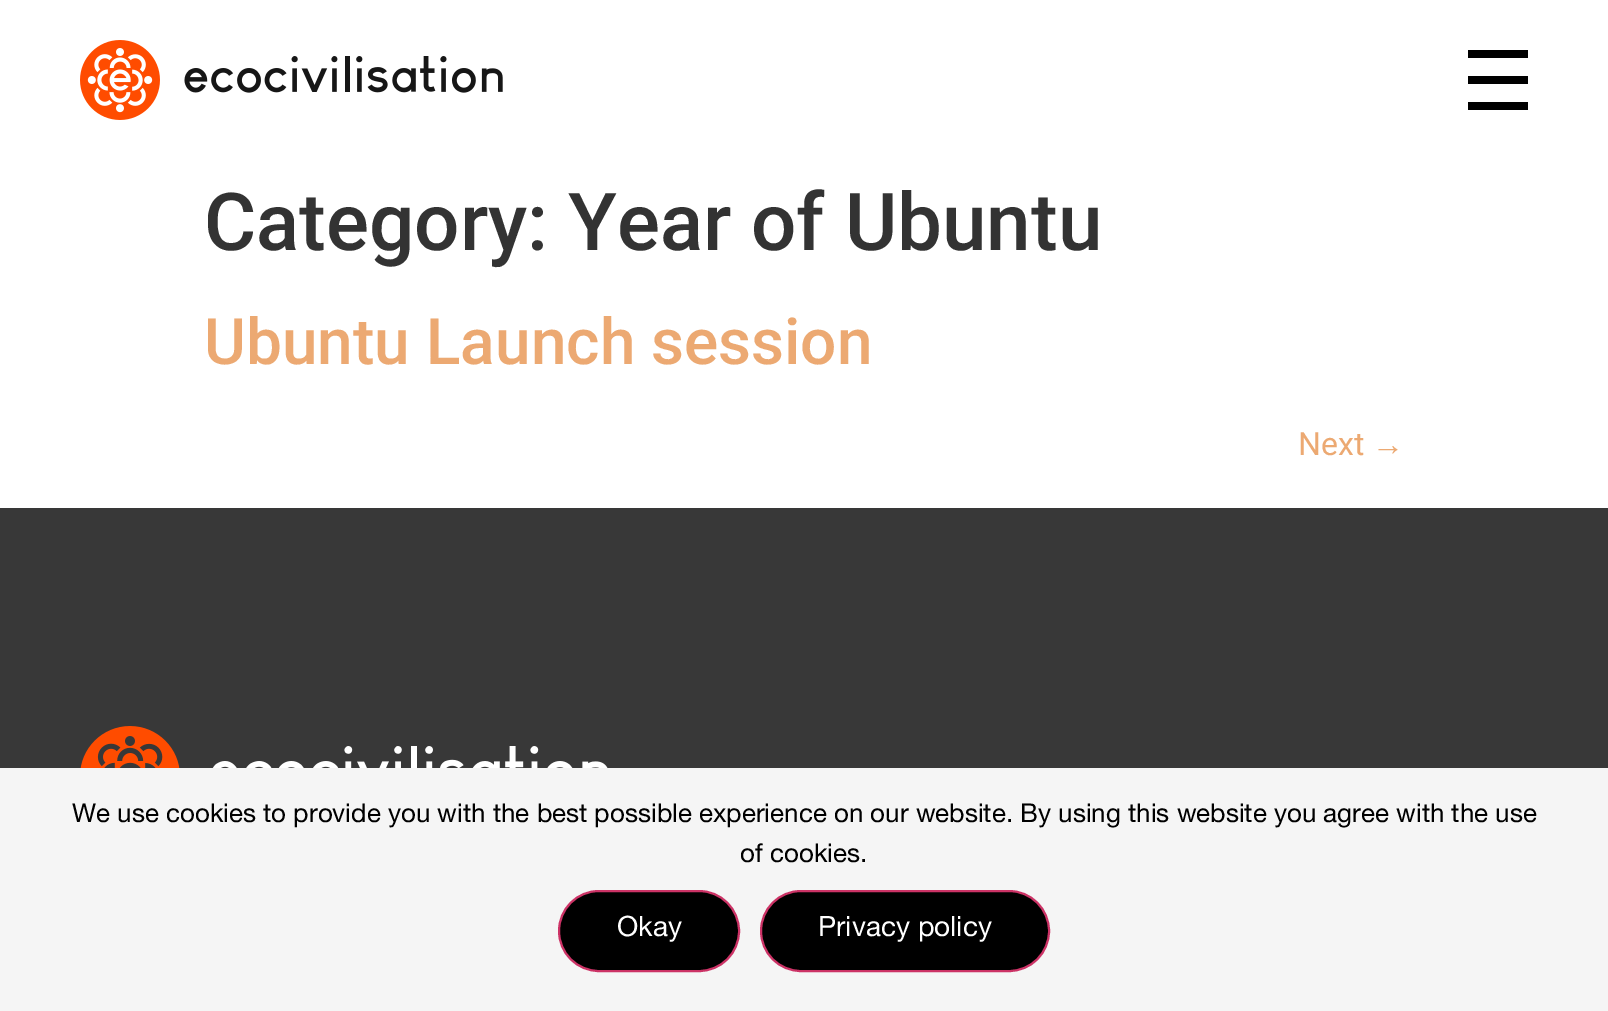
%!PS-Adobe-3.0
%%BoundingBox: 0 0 1608 1011
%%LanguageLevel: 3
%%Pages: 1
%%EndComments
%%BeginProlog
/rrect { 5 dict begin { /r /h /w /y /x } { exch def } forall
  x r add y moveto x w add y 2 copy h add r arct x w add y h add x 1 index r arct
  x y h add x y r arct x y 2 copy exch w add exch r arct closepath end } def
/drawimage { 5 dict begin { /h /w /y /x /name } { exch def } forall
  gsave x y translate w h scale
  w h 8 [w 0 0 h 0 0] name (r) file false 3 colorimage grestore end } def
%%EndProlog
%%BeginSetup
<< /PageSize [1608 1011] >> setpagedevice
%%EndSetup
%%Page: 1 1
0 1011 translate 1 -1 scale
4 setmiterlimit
1 setgray
0 0 1608 1011 rectfill
(images/1.raw) 80 40 423 80 drawimage
0 setgray
1468 50 60 8 rectfill
1468 76 60 8 rectfill
1468 102 60 8 rectfill
0.22 setgray
0 508 1608 260 rectfill
(images/2.raw) 80 726 528 42 drawimage
0.961 setgray
0 768 1608 243 rectfill
0 setgray
559 891 180 80 40 rrect gsave fill grestore
0.8 0.2 0.4 setrgbcolor
2 setlinewidth
stroke
0 setgray
761 891 288 80 40 rrect gsave fill grestore
0.8 0.2 0.4 setrgbcolor
stroke
/Roboto-Medium [80 0 0 -80 0 0] selectfont
0.2 setgray
204 250 moveto (Category: Year of Ubuntu) show
/Roboto-Medium [64 0 0 -64 0 0] selectfont
0.925 0.663 0.447 setrgbcolor
204 364 moveto (Ubuntu Launch session) show
/Roboto-Regular [32 0 0 -32 0 0] selectfont
1298 455 moveto (Next) show
/LiberationSans-Regular [32 0 0 -32 0 0] selectfont
1372 455 moveto (→) show
/HelveticaNeue-Regular [26 0 0 -26 0 0] selectfont
0 setgray
72 822 moveto (We use cookies to provide you with the best possible experience on our website. By using this website you agree with the use) show
740 862 moveto (of cookies.) show
/HelveticaNeue-Regular [28 0 0 -28 0 0] selectfont
1 setgray
617 936 moveto (Okay) show
818 936 moveto (Privacy policy) show
showpage
%%EOF
